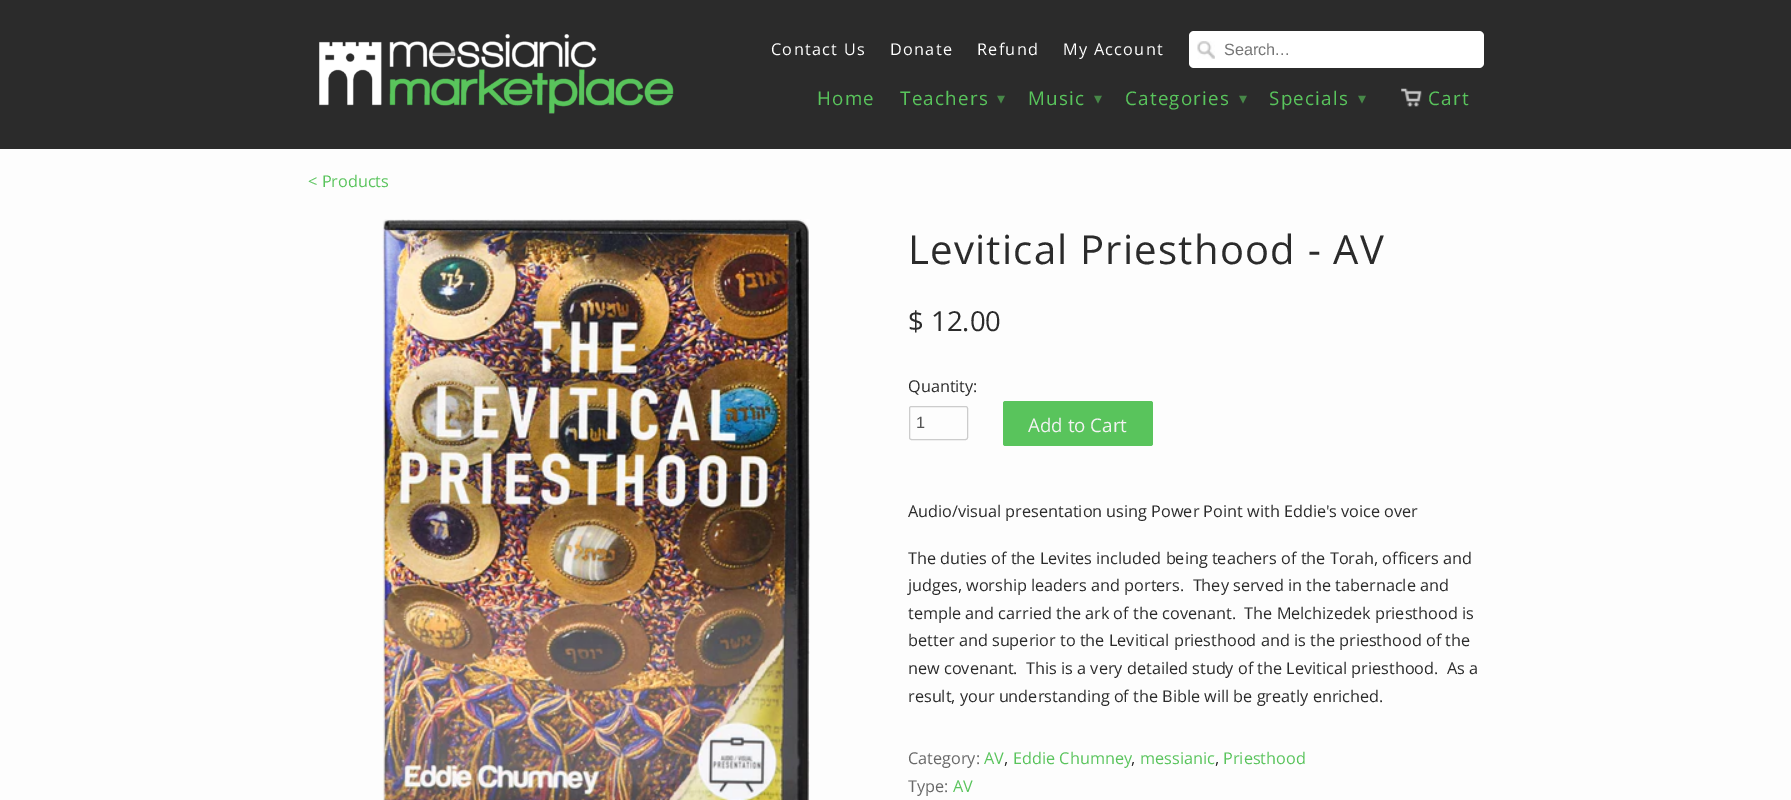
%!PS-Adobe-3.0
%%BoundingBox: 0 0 1791 800
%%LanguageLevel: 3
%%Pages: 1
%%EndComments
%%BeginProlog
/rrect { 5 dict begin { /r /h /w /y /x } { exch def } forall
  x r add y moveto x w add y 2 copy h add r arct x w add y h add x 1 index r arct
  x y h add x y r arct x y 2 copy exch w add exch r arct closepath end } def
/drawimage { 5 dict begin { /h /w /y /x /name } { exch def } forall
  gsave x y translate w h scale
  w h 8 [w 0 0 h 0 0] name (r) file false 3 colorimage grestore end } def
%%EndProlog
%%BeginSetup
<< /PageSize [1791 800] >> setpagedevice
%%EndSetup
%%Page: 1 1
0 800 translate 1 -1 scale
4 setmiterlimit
0.992 setgray
0 0 1791 800 rectfill
0.169 setgray
0 0 1791 149 rectfill
(images/1.raw) 319 34 355 80 drawimage
1 setgray
1189 31 295 37 5 rrect fill
(images/2.raw) 1197 41 18 18 drawimage
(images/3.raw) 1401 88 21 19 drawimage
(images/4.raw) 382 219 428 581 drawimage
0.8 setgray
909.5 406.5 58 33 2 rrect stroke
0.349 0.769 0.361 setrgbcolor
1003 401 150 45 2.5 rrect fill
/OpenSans-Regular [16.25 0 0 -16.25 0 0] selectfont
1 setgray
771 55 moveto 1.25 0 (Contact Us) ashow
890 55 moveto 1.25 0 (Donate) ashow
977 55 moveto 1.25 0 (Refund) ashow
1063 55 moveto 1.25 0 (My Account) ashow
/LiberationSans-Regular [16.25 0 0 -16.25 0 0] selectfont
0.459 setgray
1224 55 moveto (Search...) show
/OpenSans-Regular [18.75 0 0 -18.75 0 0] selectfont
0.349 0.769 0.361 setrgbcolor
817 105 moveto 1.25 0 (Home) ashow
900 105 moveto 1.25 0 (Teachers) ashow
/DejaVuSans-Regular [16 0 0 -16 0 0] selectfont
0.278 0.529 0.282 setrgbcolor
997 104 moveto 1.25 0 (▾) ashow
/OpenSans-Regular [18.75 0 0 -18.75 0 0] selectfont
0.349 0.769 0.361 setrgbcolor
1028 105 moveto 1.25 0 (Music) ashow
/DejaVuSans-Regular [16 0 0 -16 0 0] selectfont
0.278 0.529 0.282 setrgbcolor
1094 104 moveto 1.25 0 (▾) ashow
/OpenSans-Regular [18.75 0 0 -18.75 0 0] selectfont
0.349 0.769 0.361 setrgbcolor
1125 105 moveto 1.25 0 (Categories) ashow
/DejaVuSans-Regular [16 0 0 -16 0 0] selectfont
0.278 0.529 0.282 setrgbcolor
1239 104 moveto 1.25 0 (▾) ashow
/OpenSans-Regular [18.75 0 0 -18.75 0 0] selectfont
0.349 0.769 0.361 setrgbcolor
1269 105 moveto 1.25 0 (Specials) ashow
/DejaVuSans-Regular [16 0 0 -16 0 0] selectfont
0.278 0.529 0.282 setrgbcolor
1358 104 moveto 1.25 0 (▾) ashow
/OpenSans-Regular [18.75 0 0 -18.75 0 0] selectfont
0.349 0.769 0.361 setrgbcolor
1428 105 moveto 1.25 0 (Cart) ashow
/OpenSans-Regular [16.25 0 0 -16.25 0 0] selectfont
308 187 moveto (< Products) show
/OpenSans-Regular [40 0 0 -40 0 0] selectfont
0.169 setgray
908 264 moveto 1.25 0 (Levitical Priesthood - AV) ashow
/OpenSans-Regular [27.5 0 0 -27.5 0 0] selectfont
908 331 moveto ($ 12.00) show
/OpenSans-Regular [16.25 0 0 -16.25 0 0] selectfont
908 392 moveto (Quantity:) show
/LiberationSans-Regular [16.25 0 0 -16.25 0 0] selectfont
0.333 setgray
916 428 moveto (1) show
/OpenSans-Regular [18.75 0 0 -18.75 0 0] selectfont
0.953 setgray
1028 432 moveto (Add to Cart) show
/OpenSans-Regular [16.25 0 0 -16.25 0 0] selectfont
0.169 setgray
908 517 moveto (Audio/visual presentation using Power Point with Eddie's voice over) show
908 564 moveto (The duties of the Levites included being teachers of the Torah, officers and) show
908 591 moveto (judges, worship leaders and porters.  They served in the tabernacle and) show
908 619 moveto (temple and carried the ark of the covenant.  The Melchizedek priesthood is) show
908 646 moveto (better and superior to the Levitical priesthood and is the priesthood of the) show
908 674 moveto (new covenant.  This is a very detailed study of the Levitical priesthood.  As a) show
908 702 moveto (result, your understanding of the Bible will be greatly enriched.) show
0.408 setgray
908 764 moveto (Category:) show
0.349 0.769 0.361 setrgbcolor
984 764 moveto (AV) show
0.169 setgray
1004 764 moveto (,) show
0.349 0.769 0.361 setrgbcolor
1013 764 moveto (Eddie Chumney) show
0.169 setgray
1131 764 moveto (,) show
0.349 0.769 0.361 setrgbcolor
1140 764 moveto (messianic) show
0.169 setgray
1215 764 moveto (,) show
0.349 0.769 0.361 setrgbcolor
1223 764 moveto (Priesthood) show
0.408 setgray
908 792 moveto (Type:) show
0.349 0.769 0.361 setrgbcolor
953 792 moveto (AV) show
showpage
%%EOF
